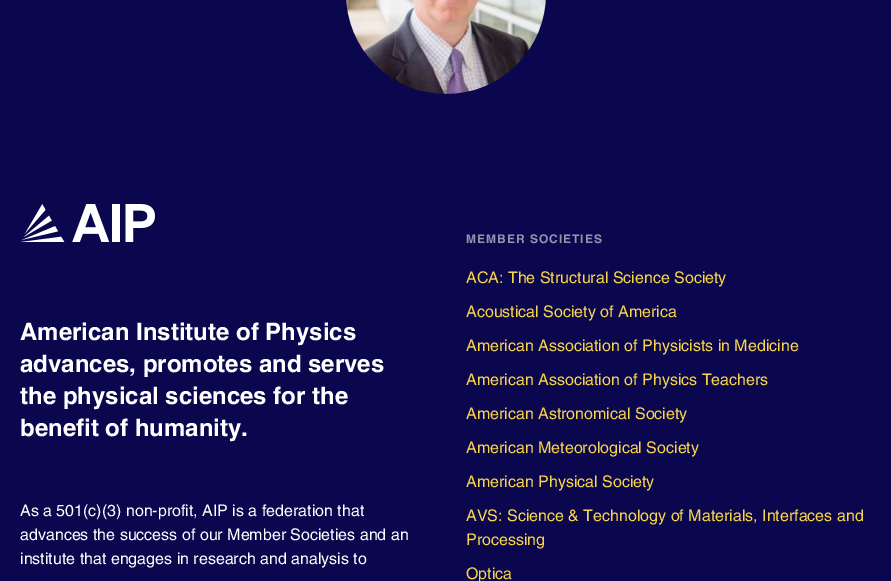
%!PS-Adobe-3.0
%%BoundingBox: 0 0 891 581
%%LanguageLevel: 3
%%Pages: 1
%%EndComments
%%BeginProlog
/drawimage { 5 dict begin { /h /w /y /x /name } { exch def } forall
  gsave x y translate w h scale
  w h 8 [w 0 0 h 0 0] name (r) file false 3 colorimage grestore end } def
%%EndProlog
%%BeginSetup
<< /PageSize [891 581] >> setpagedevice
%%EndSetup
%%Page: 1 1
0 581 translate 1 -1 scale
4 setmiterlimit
0.043 0.027 0.306 setrgbcolor
0 0 891 581 rectfill
(images/1.raw) 346 0 200 94 drawimage
(images/2.raw) 20 204 135 38 drawimage
/Helvetica-Bold [24 0 0 -24 0 0] selectfont
1 setgray
20 340 moveto (American Institute of Physics) show
20 372 moveto (advances, promotes and serves) show
20 404 moveto (the physical sciences for the) show
20 436 moveto (benefit of humanity.) show
/Helvetica-Regular [16 0 0 -16 0 0] selectfont
20 516 moveto (As a 501\(c\)\(3\) non-profit, AIP is a federation that) show
20 540 moveto (advances the success of our Member Societies and an) show
20 564 moveto (institute that engages in research and analysis to) show
/Helvetica-Bold [12 0 0 -12 0 0] selectfont
0.588 0.58 0.686 setrgbcolor
466 243 moveto 1 0 (MEMBER SOCIETIES) ashow
/Helvetica-Regular [16 0 0 -16 0 0] selectfont
0.976 0.835 0.294 setrgbcolor
466 283 moveto (ACA: The Structural Science Society) show
466 317 moveto (Acoustical Society of America) show
466 351 moveto (American Association of Physicists in Medicine) show
466 385 moveto (American Association of Physics Teachers) show
466 419 moveto (American Astronomical Society) show
466 453 moveto (American Meteorological Society) show
466 487 moveto (American Physical Society) show
466 521 moveto (AVS: Science & Technology of Materials, Interfaces and) show
466 545 moveto (Processing) show
466 579 moveto (Optica) show
showpage
%%EOF
